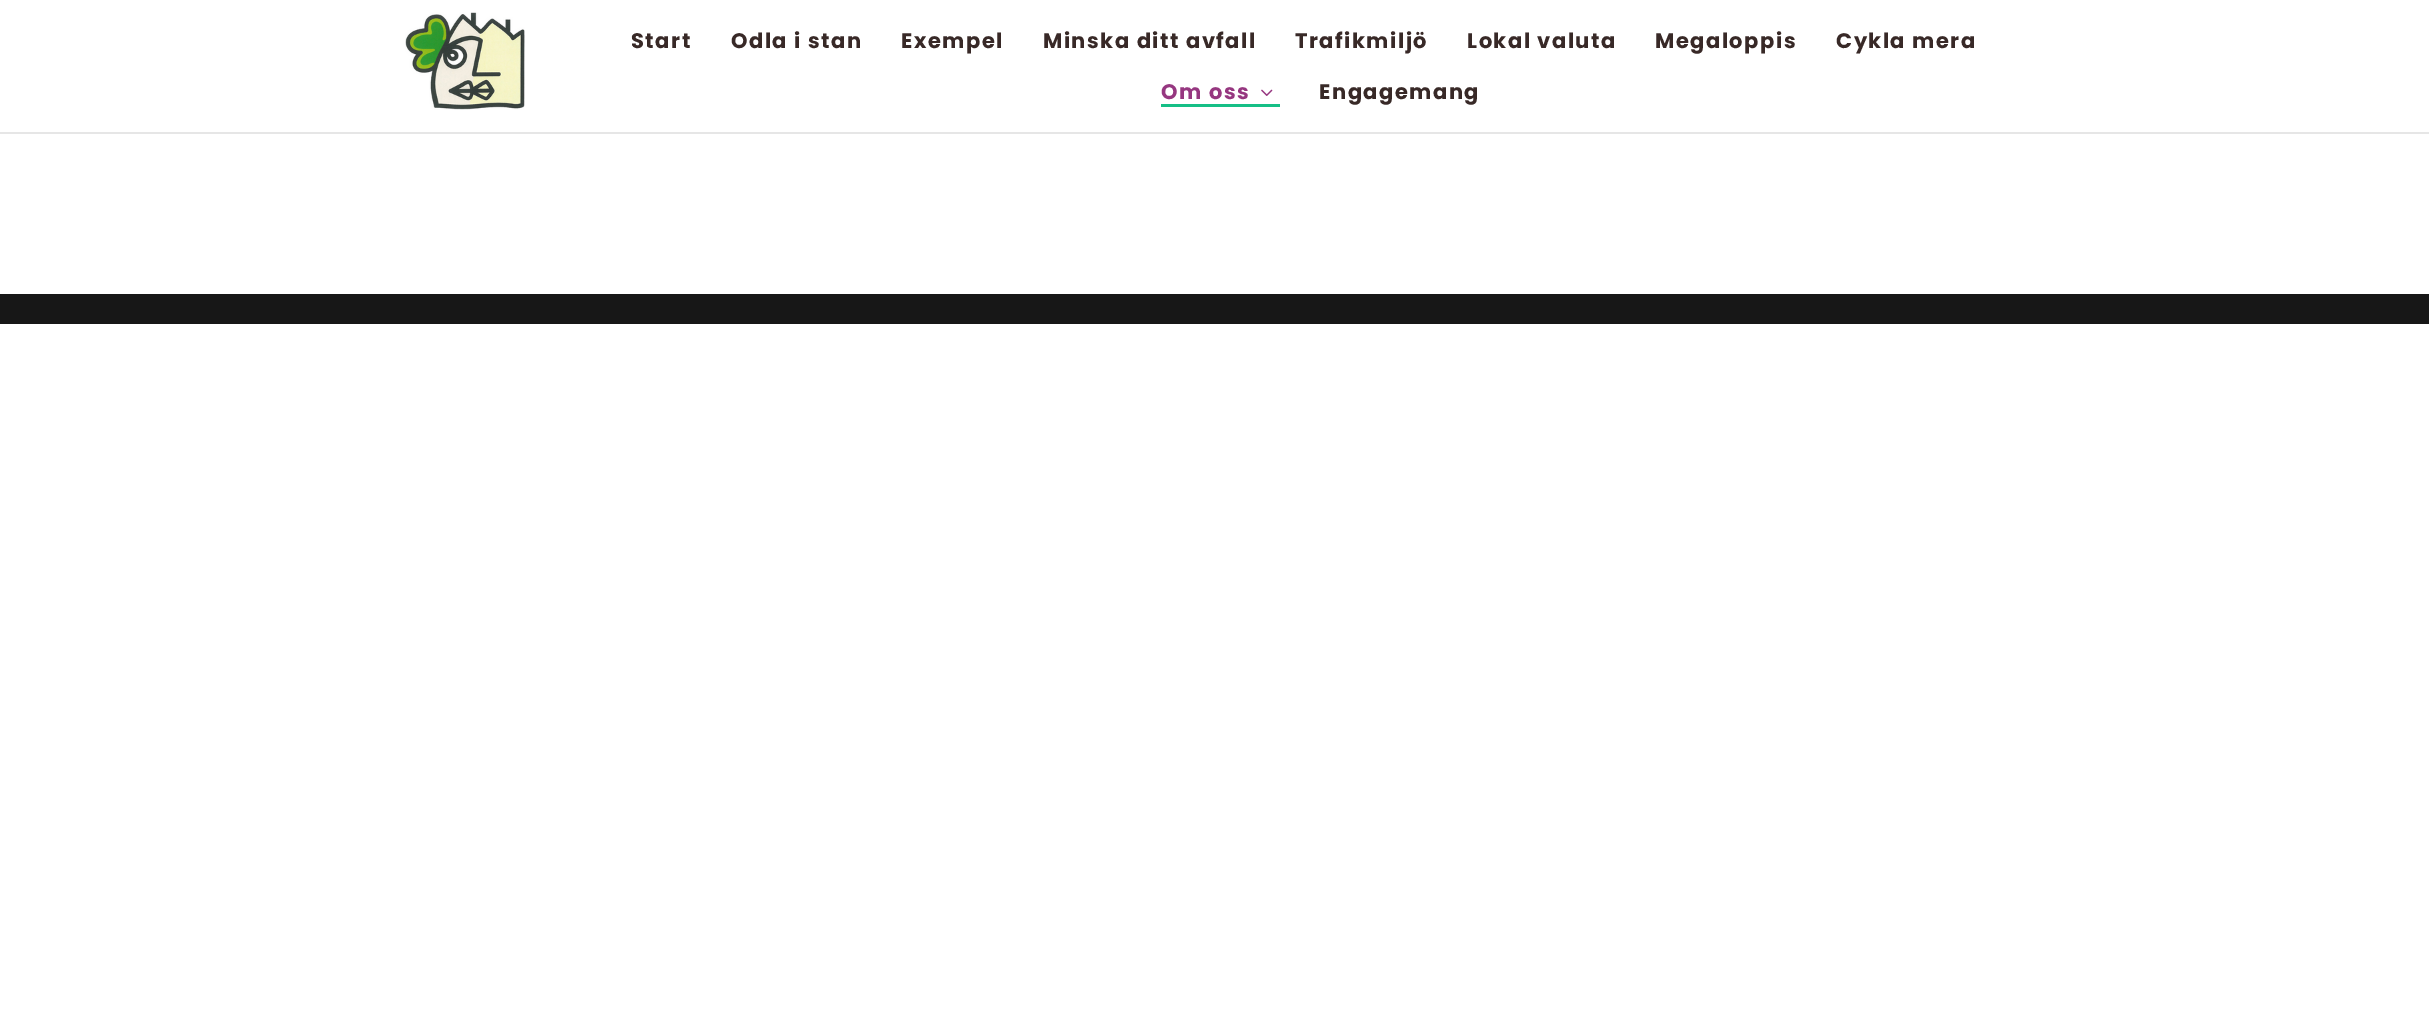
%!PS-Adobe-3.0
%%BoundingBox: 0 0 2429 1017
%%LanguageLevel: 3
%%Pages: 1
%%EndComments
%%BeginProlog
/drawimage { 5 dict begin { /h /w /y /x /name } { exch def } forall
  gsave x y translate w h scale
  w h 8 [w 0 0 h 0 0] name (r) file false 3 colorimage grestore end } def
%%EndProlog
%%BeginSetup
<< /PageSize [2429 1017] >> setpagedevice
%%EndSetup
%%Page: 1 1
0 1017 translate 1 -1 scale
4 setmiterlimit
1 setgray
0 0 2429 1017 rectfill
0.902 setgray
0 132 2429 2 rectfill
(images/1.raw) 405 12 120 98 drawimage
(images/2.raw) 1261 89 12 7 drawimage
0.082 0.749 0.525 setrgbcolor
1161 104 119 3 rectfill
0.09 setgray
0 294 2429 30 rectfill
/Poppins-Bold [21 0 0 -21 0 0] selectfont
0.22 0.161 0.153 setrgbcolor
631 48 moveto 1.5 0 (Start) ashow
731 48 moveto 1.5 0 (Odla i stan) ashow
901 48 moveto 1.5 0 (Exempel) ashow
1043 48 moveto 1.5 0 (Minska ditt avfall) ashow
1295 48 moveto 1.5 0 (Trafikmiljö) ashow
1467 48 moveto 1.5 0 (Lokal valuta) ashow
1655 48 moveto 1.5 0 (Megaloppis) ashow
1836 48 moveto 1.5 0 (Cykla mera) ashow
0.588 0.216 0.502 setrgbcolor
1161 99 moveto 1.5 0 (Om oss) ashow
0.22 0.161 0.153 setrgbcolor
1319 99 moveto 1.5 0 (Engagemang) ashow
showpage
%%EOF
